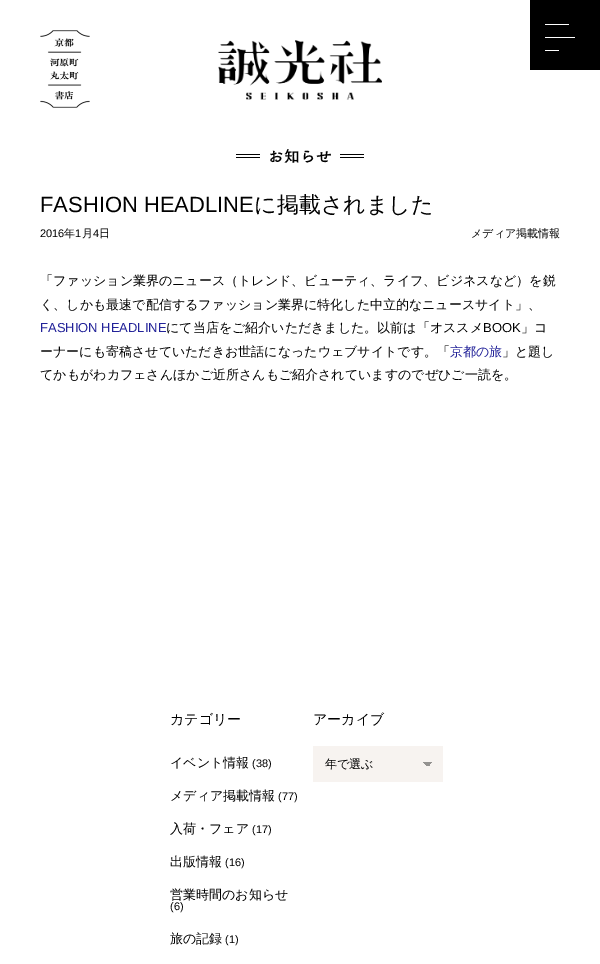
%!PS-Adobe-3.0
%%BoundingBox: 0 0 600 964
%%LanguageLevel: 3
%%Pages: 1
%%EndComments
%%BeginProlog
/drawimage { 5 dict begin { /h /w /y /x /name } { exch def } forall
  gsave x y translate w h scale
  w h 8 [w 0 0 h 0 0] name (r) file false 3 colorimage grestore end } def
%%EndProlog
%%BeginSetup
<< /PageSize [600 964] >> setpagedevice
%%EndSetup
%%Page: 1 1
0 964 translate 1 -1 scale
4 setmiterlimit
1 setgray
0 0 600 964 rectfill
(images/1.raw) 40 30 50 78 drawimage
(images/2.raw) 218 40 164 60 drawimage
0 setgray
530 0 70 70 rectfill
1 setgray
545 24 24 1 rectfill
545 37 30 1 rectfill
545 50 14 1 rectfill
0 setgray
236 154 24 1 rectfill
236 157 24 1 rectfill
340 154 24 1 rectfill
340 157 24 1 rectfill
0.969 0.953 0.941 setrgbcolor
313 746 130 36 rectfill
gsave newpath 428 762 moveto 433 762 lineto 433 766 lineto 428 766 lineto closepath clip newpath
<< /ShadingType 2 /ColorSpace /DeviceRGB /Coords [428 762 433 767] /Extend [true true] /Function << /FunctionType 3 /Domain [0 1] /Functions [<< /FunctionType 2 /Domain [0 1] /C0 [0.58 0.573 0.565] /C1 [0.58 0.573 0.565] /N 1 >> << /FunctionType 2 /Domain [0 1] /C0 [0.969 0.953 0.941] /C1 [0.969 0.953 0.941] /N 1 >>] /Bounds [0.5] /Encode [0 1 0 1] >> >> shfill grestore
gsave newpath 423 762 moveto 428 762 lineto 428 766 lineto 423 766 lineto closepath clip newpath
<< /ShadingType 2 /ColorSpace /DeviceRGB /Coords [423 767 428 762] /Extend [true true] /Function << /FunctionType 3 /Domain [0 1] /Functions [<< /FunctionType 2 /Domain [0 1] /C0 [0.969 0.953 0.941] /C1 [0.969 0.953 0.941] /N 1 >> << /FunctionType 2 /Domain [0 1] /C0 [0.58 0.573 0.565] /C1 [0.58 0.573 0.565] /N 1 >>] /Bounds [0.5] /Encode [0 1 0 1] >> >> shfill grestore
/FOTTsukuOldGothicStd-Bold [16 0 0 -16 0 0] selectfont
0 setgray
268 162 moveto (お知らせ) show
/LiberationSans-Regular [22 0 0 -22 0 0] selectfont
40 212 moveto (FASHION HEADLINE) show
/WenQuanYiZenHei-Medium [22 0 0 -22 0 0] selectfont
254 212 moveto (に掲載されました) show
/LiberationSans-Regular [11 0 0 -11 0 0] selectfont
40 237 moveto (2016) show
/WenQuanYiZenHei-Medium [11 0 0 -11 0 0] selectfont
64 237 moveto (年) show
/LiberationSans-Regular [11 0 0 -11 0 0] selectfont
75 237 moveto (1) show
/WenQuanYiZenHei-Medium [11 0 0 -11 0 0] selectfont
82 237 moveto (月) show
/LiberationSans-Regular [11 0 0 -11 0 0] selectfont
93 237 moveto (4) show
/WenQuanYiZenHei-Medium [11 0 0 -11 0 0] selectfont
99 237 moveto (日) show
471 237 moveto (メディア掲載情報) show
/WenQuanYiZenHei-Medium [13 0 0 -13 0 0] selectfont
40 285 moveto (「ファッション業界のニュース（トレンド、ビューティ、ライフ、ビジネスなど）を鋭) show
40 309 moveto (く、しかも最速で配信するファッション業界に特化した中立的なニュースサイト」、) show
/LiberationSans-Regular [13 0 0 -13 0 0] selectfont
0.133 0.133 0.6 setrgbcolor
40 332 moveto (FASHION HEADLINE) show
/WenQuanYiZenHei-Medium [13 0 0 -13 0 0] selectfont
0 setgray
166 332 moveto (にて当店をご紹介いただきました。以前は「オススメ) show
/LiberationSans-Regular [13 0 0 -13 0 0] selectfont
483 332 moveto (BOOK) show
/WenQuanYiZenHei-Medium [13 0 0 -13 0 0] selectfont
521 332 moveto (」コ) show
40 356 moveto (ーナーにも寄稿させていただきお世話になったウェブサイトです。「) show
0.133 0.133 0.6 setrgbcolor
450 356 moveto (京都の旅) show
0 setgray
502 356 moveto (」と題し) show
40 379 moveto (てかもがわカフェさんほかご近所さんもご紹介されていますのでぜひご一読を。) show
/WenQuanYiZenHei-Medium [14 0 0 -14 0 0] selectfont
170 724 moveto (カテゴリー) show
/WenQuanYiZenHei-Medium [13 0 0 -13 0 0] selectfont
170 767 moveto (イベント情報) show
/LiberationSans-Regular [11 0 0 -11 0 0] selectfont
252 767 moveto (\(38\)) show
/WenQuanYiZenHei-Medium [13 0 0 -13 0 0] selectfont
170 800 moveto (メディア掲載情報) show
/LiberationSans-Regular [11 0 0 -11 0 0] selectfont
278 800 moveto (\(77\)) show
/WenQuanYiZenHei-Medium [13 0 0 -13 0 0] selectfont
170 833 moveto (入荷・フェア) show
/LiberationSans-Regular [11 0 0 -11 0 0] selectfont
252 833 moveto (\(17\)) show
/WenQuanYiZenHei-Medium [13 0 0 -13 0 0] selectfont
170 866 moveto (出版情報) show
/LiberationSans-Regular [11 0 0 -11 0 0] selectfont
225 866 moveto (\(16\)) show
/WenQuanYiZenHei-Medium [13 0 0 -13 0 0] selectfont
170 899 moveto (営業時間のお知らせ) show
/LiberationSans-Regular [11 0 0 -11 0 0] selectfont
170 910 moveto (\(6\)) show
/WenQuanYiZenHei-Medium [13 0 0 -13 0 0] selectfont
170 943 moveto (旅の記録) show
/LiberationSans-Regular [11 0 0 -11 0 0] selectfont
225 943 moveto (\(1\)) show
/WenQuanYiZenHei-Medium [14 0 0 -14 0 0] selectfont
313 724 moveto (アーカイブ) show
/WenQuanYiZenHei-Medium [12 0 0 -12 0 0] selectfont
325 768 moveto (年で選ぶ) show
showpage
%%EOF
